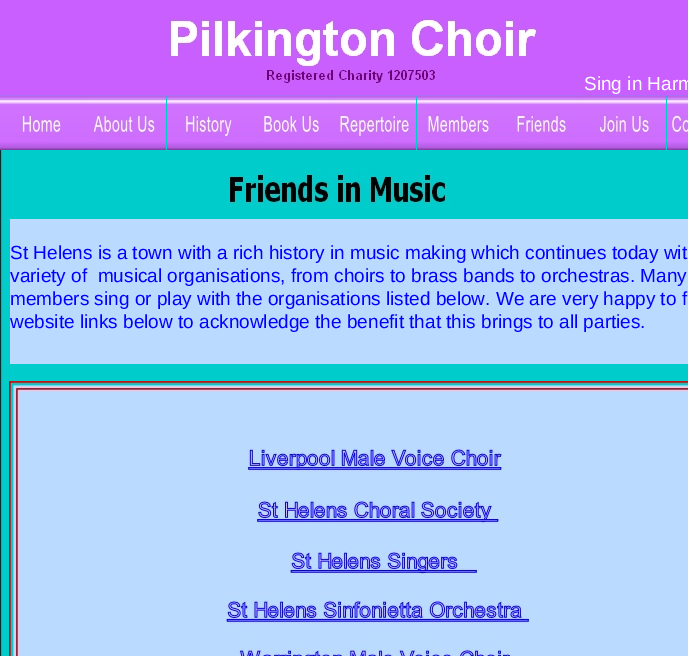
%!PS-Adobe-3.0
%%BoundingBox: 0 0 688 656
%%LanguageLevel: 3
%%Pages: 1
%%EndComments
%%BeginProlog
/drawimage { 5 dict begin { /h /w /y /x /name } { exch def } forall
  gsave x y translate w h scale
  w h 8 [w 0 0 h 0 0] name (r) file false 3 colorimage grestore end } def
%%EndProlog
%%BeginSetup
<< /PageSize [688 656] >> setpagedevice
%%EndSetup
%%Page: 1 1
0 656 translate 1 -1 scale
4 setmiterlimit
1 setgray
0 0 688 656 rectfill
(images/1.raw) 0 0 688 656 drawimage
(images/2.raw) 0 96 83 54 drawimage
(images/3.raw) 83 96 83 54 drawimage
(images/4.raw) 167 96 83 54 drawimage
(images/5.raw) 250 96 83 54 drawimage
(images/6.raw) 333 96 83 54 drawimage
(images/7.raw) 417 96 83 54 drawimage
(images/8.raw) 500 96 83 54 drawimage
(images/9.raw) 583 96 83 54 drawimage
(images/10.raw) 667 96 21 54 drawimage
(images/11.raw) 228 167 224 42 drawimage
0.729 0.855 1 setrgbcolor
10 219 678 145 rectfill
(images/12.raw) 9 381 679 275 drawimage
/LiberationSans-Regular [19 0 0 -19 0 0] selectfont
1 setgray
584 90 moveto (Sing in Harm) show
0 0 1 setrgbcolor
10 259 moveto (St Helens is a town with a rich history in music making which continues today wit) show
10 282 moveto (variety of  musical organisations, from choirs to brass bands to orchestras. Many) show
10 305 moveto (members sing or play with the organisations listed below. We are very happy to f) show
10 328 moveto (website links below to acknowledge the benefit that this brings to all parties.) show
showpage
%%EOF
